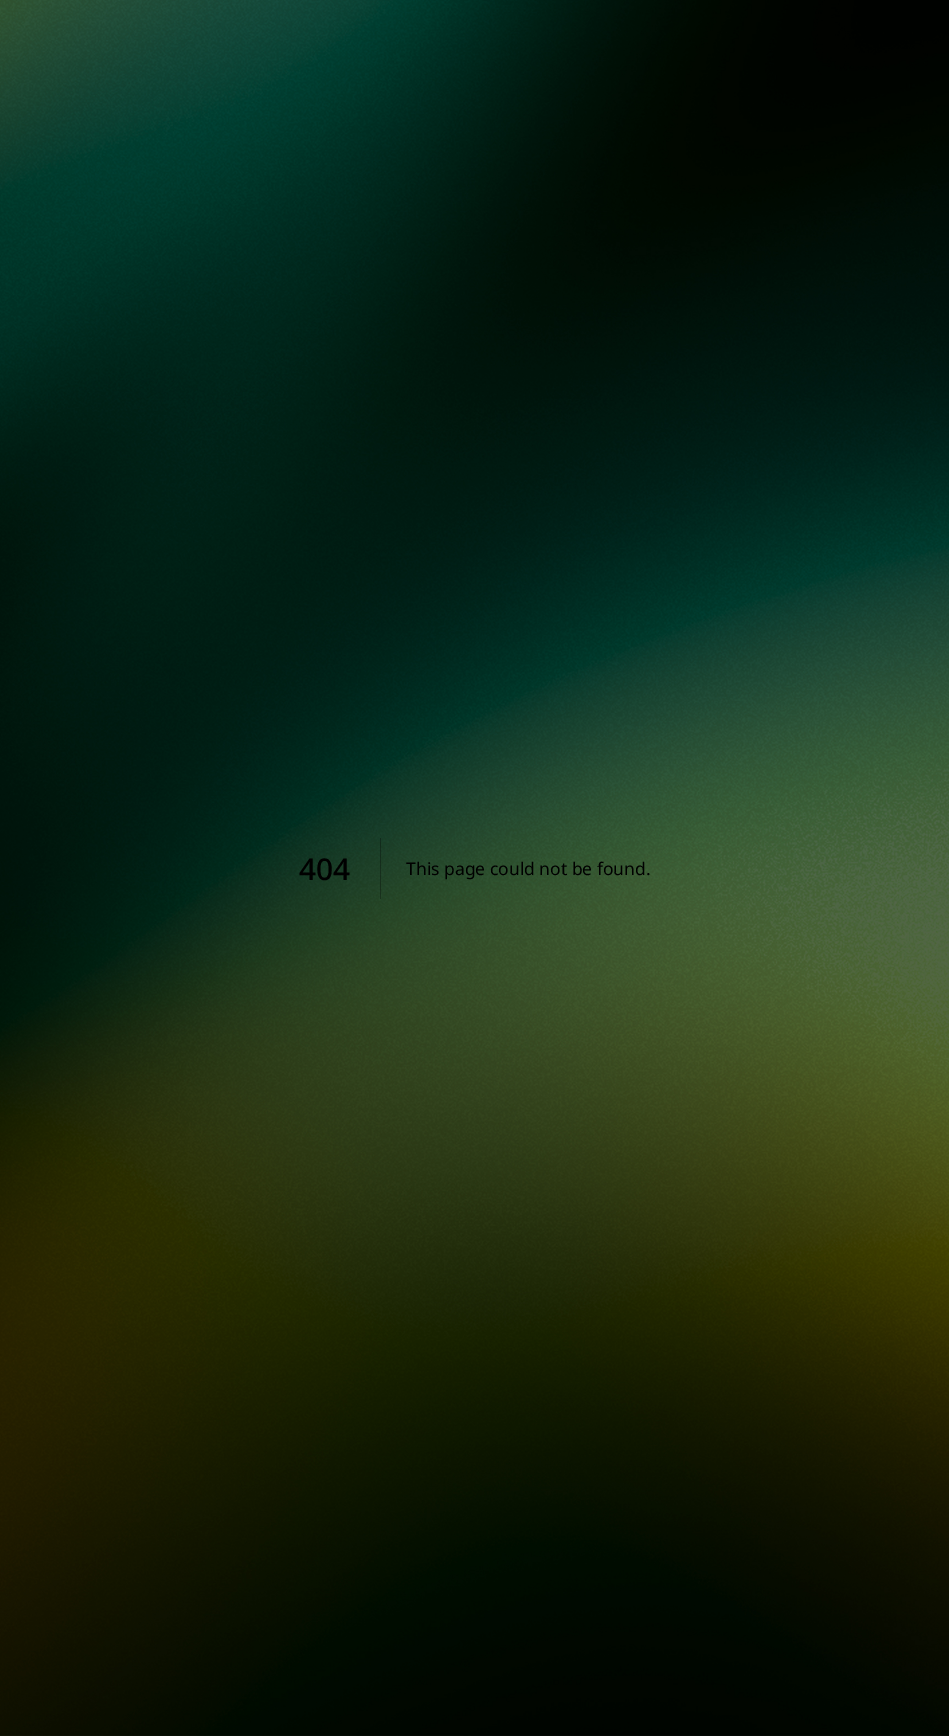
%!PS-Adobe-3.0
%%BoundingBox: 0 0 949 1736
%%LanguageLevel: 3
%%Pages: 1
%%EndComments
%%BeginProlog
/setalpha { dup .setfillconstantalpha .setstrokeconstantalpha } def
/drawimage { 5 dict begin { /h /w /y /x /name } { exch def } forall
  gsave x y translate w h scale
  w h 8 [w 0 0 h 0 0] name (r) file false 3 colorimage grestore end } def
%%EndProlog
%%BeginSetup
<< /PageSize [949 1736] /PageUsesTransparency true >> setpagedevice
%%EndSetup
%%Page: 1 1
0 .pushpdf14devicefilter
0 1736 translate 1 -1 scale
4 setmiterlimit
1 setgray
0 0 949 1736 rectfill
(images/1.raw) 0 0 949 1736 drawimage
0.3 setalpha
0 setgray
380 838 1 61 rectfill
/NotoSans-Medium [30 0 0 -30 0 0] selectfont
1 setalpha
299 880 moveto (404) show
/NotoSans-Regular [17.5 0 0 -17.5 0 0] selectfont
406 875 moveto (This page could not be found.) show
.poppdf14devicefilter showpage
%%EOF
